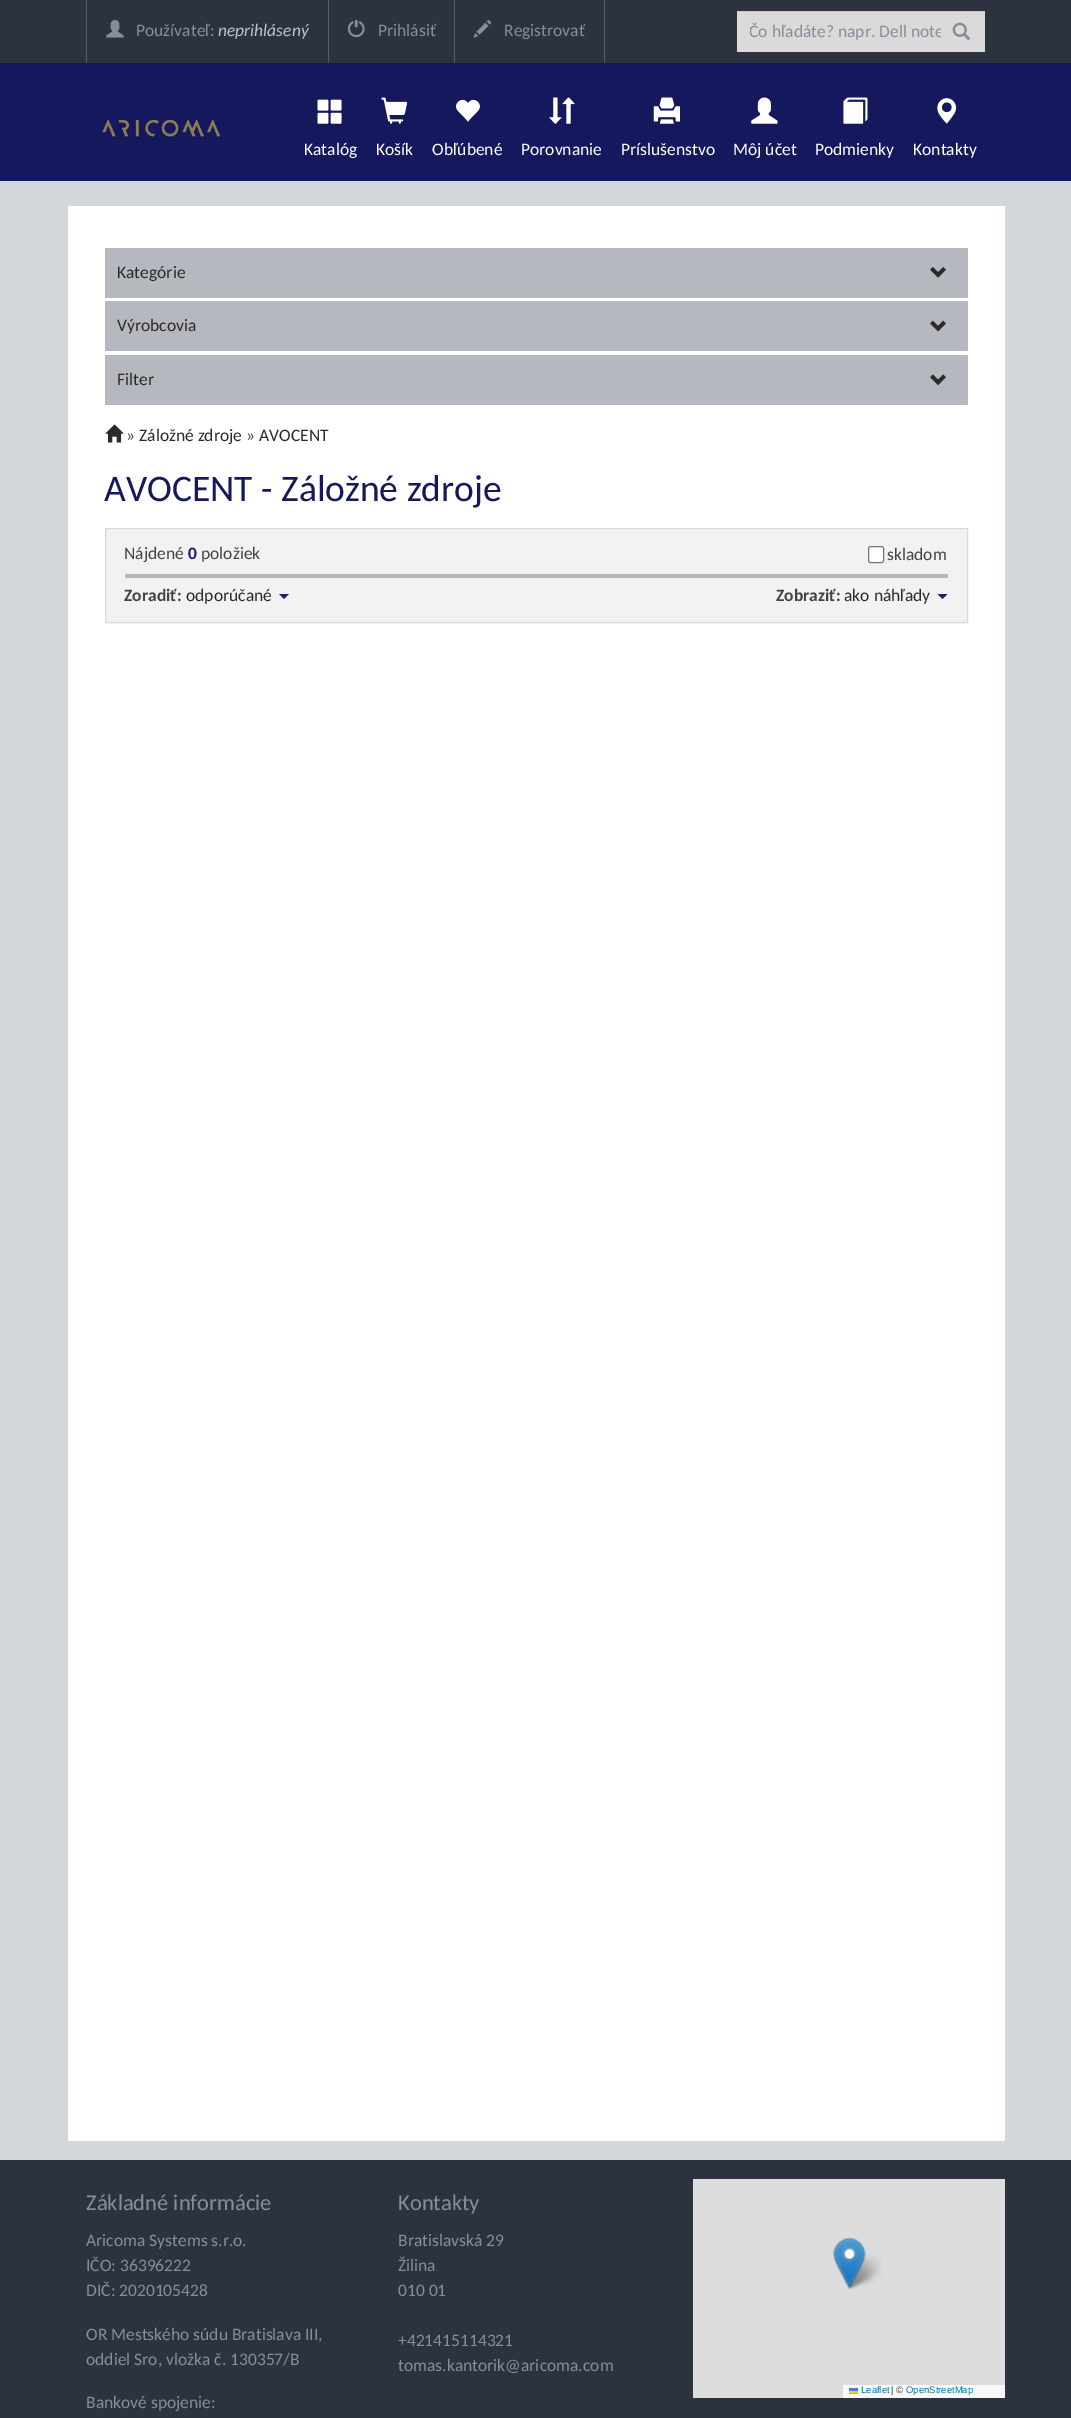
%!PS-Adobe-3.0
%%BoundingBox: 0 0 1071 2418
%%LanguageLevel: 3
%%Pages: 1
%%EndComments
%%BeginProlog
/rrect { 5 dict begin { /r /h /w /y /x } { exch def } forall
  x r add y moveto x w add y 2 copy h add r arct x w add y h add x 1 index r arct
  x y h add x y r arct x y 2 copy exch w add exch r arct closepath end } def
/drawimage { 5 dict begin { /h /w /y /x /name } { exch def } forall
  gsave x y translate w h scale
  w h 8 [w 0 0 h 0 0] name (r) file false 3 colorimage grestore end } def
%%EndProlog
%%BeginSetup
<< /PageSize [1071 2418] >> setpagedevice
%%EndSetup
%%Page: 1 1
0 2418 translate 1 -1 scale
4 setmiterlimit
0.827 0.839 0.859 setrgbcolor
0 0 1071 2418 rectfill
0.173 0.196 0.247 setrgbcolor
0 0 1071 63 rectfill
0.337 0.357 0.404 setrgbcolor
86 0 1 63 rectfill
(images/1.raw) 106 20 18 18 drawimage
328 0 1 63 rectfill
(images/2.raw) 347 20 18 18 drawimage
604 0 1 63 rectfill
454 0 1 63 rectfill
(images/3.raw) 473 19 19 19 drawimage
0.859 0.855 0.855 setrgbcolor
737 11 248 41 rectfill
0.796 0.792 0.792 setrgbcolor
738 11 247 1 rectfill
(images/4.raw) 952 22 18 18 drawimage
0.082 0.094 0.361 setrgbcolor
0 63 1071 118 rectfill
(images/5.raw) 102 120 118 17 drawimage
(images/6.raw) 317 99 25 25 drawimage
(images/7.raw) 381 97 27 27 drawimage
(images/8.raw) 455 99 25 23 drawimage
(images/9.raw) 549 97 26 27 drawimage
(images/10.raw) 653 97 27 27 drawimage
(images/11.raw) 751 97 27 27 drawimage
(images/12.raw) 843 97 25 27 drawimage
(images/13.raw) 937 98 20 26 drawimage
1 setgray
68 206 937 1935 rectfill
0.71 0.725 0.749 setrgbcolor
105 248 863 50 rectfill
(images/14.raw) 930 267 16 11 drawimage
105 301 863 50 rectfill
(images/15.raw) 930 320 16 12 drawimage
105 355 863 50 rectfill
(images/16.raw) 930 374 16 12 drawimage
(images/17.raw) 105 424 19 19 drawimage
0.949 setgray
newpath 105.5 528.5 moveto 967.5 528.5 lineto 967.5 622.5 lineto 105.5 622.5 lineto closepath gsave fill grestore
0.851 setgray
stroke
1 setgray
868.5 546.5 15 16 2 rrect gsave fill grestore
0.463 setgray
stroke
0.71 0.725 0.749 setrgbcolor
125 574 823 4 rectfill
0.102 0.114 0.443 setrgbcolor
newpath 279 594 moveto 289 594 lineto 284 599 lineto closepath fill
newpath 937.5 594 moveto 947.5 594 lineto 942.5 599 lineto closepath fill
0.173 0.196 0.247 setrgbcolor
0 2160 1071 258 rectfill
0.867 setgray
693 2179 312 219 rectfill
(images/19.raw) 845 2253 37 36 drawimage
(images/18.raw) 833 2237 33 53 drawimage
0.973 setgray
843 2385 162 13 rectfill
0.298 0.482 0.882 setrgbcolor
849 2388 9 3 rectfill
1 0.835 0 setrgbcolor
849 2391 9 2 rectfill
0.878 0.737 0 setrgbcolor
849 2393 9 1 rectfill
/Carlito-Regular [17.5 0 0 -17.5 0 0] selectfont
0.533 0.553 0.608 setrgbcolor
136 36 moveto (Používateľ:) show
/Carlito-Italic [17.5 0 0 -17.5 0 0] selectfont
0.749 0.761 0.792 setrgbcolor
218 36 moveto (neprihlásený) show
/Carlito-Regular [17.5 0 0 -17.5 0 0] selectfont
0.533 0.553 0.608 setrgbcolor
378 36 moveto (Prihlásiť) show
504 36 moveto (Registrovať) show
gsave
750 21 191 22 rectclip
749 37 moveto (Čo hľadáte? napr. Dell note) show
grestore
1 setgray
304 155 moveto (Katalóg) show
376 155 moveto (Košík) show
432 155 moveto (Obľúbené) show
521 155 moveto (Porovnanie) show
621 155 moveto (Príslušenstvo) show
733 155 moveto (Môj účet) show
815 155 moveto (Podmienky) show
913 155 moveto (Kontakty) show
0.165 setgray
117 278 moveto (Kategórie) show
117 331 moveto (Výrobcovia) show
117 385 moveto (Filter) show
0.267 setgray
126 441 moveto (») show
0.165 setgray
139 441 moveto (Záložné zdroje) show
0.267 setgray
246 441 moveto (») show
0.165 setgray
259 441 moveto (AVOCENT) show
/Carlito-Regular [37.5 0 0 -37.5 0 0] selectfont
0.082 0.094 0.361 setrgbcolor
104 501 moveto (AVOCENT - Záložné zdroje) show
/Carlito-Regular [17.5 0 0 -17.5 0 0] selectfont
0.267 setgray
124 559 moveto (Nájdené) show
/Carlito-Bold [17.5 0 0 -17.5 0 0] selectfont
0.102 0.114 0.443 setrgbcolor
188 559 moveto (0) show
/Carlito-Regular [17.5 0 0 -17.5 0 0] selectfont
0.267 setgray
201 559 moveto (položiek) show
887 560 moveto (skladom) show
/Carlito-Bold [17.5 0 0 -17.5 0 0] selectfont
124 601 moveto (Zoradiť:) show
/Carlito-Regular [17.5 0 0 -17.5 0 0] selectfont
0.165 setgray
186 601 moveto (odporúčané) show
/Carlito-Bold [17.5 0 0 -17.5 0 0] selectfont
0.267 setgray
776 601 moveto (Zobraziť:) show
/Carlito-Regular [17.5 0 0 -17.5 0 0] selectfont
0.165 setgray
844 601 moveto (ako náhľady) show
/Carlito-Regular [22.5 0 0 -22.5 0 0] selectfont
0.533 0.553 0.608 setrgbcolor
86 2210 moveto (Základné informácie) show
/Carlito-Regular [17.5 0 0 -17.5 0 0] selectfont
86 2246 moveto (Aricoma Systems s.r.o.) show
86 2271 moveto (IČO: 36396222) show
86 2296 moveto (DIČ: 2020105428) show
86 2340 moveto (OR Mestského súdu Bratislava III,) show
86 2365 moveto (oddiel Sro, vložka č. 130357/B) show
86 2408 moveto (Bankové spojenie:) show
/Carlito-Regular [22.5 0 0 -22.5 0 0] selectfont
398 2210 moveto (Kontakty) show
/Carlito-Regular [17.5 0 0 -17.5 0 0] selectfont
398 2246 moveto (Bratislavská 29) show
398 2271 moveto (Žilina) show
398 2296 moveto (010 01) show
398 2346 moveto (+421415114321) show
398 2371 moveto (tomas.kantorik@aricoma.com) show
/LiberationSans-Regular [9.5 0 0 -9.5 0 0] selectfont
0 0.471 0.659 setrgbcolor
861 2393 moveto (Leaflet) show
0.2 setgray
891 2393 moveto (| ©) show
0 0.471 0.659 setrgbcolor
906 2393 moveto (OpenStreetMap) show
showpage
%%EOF
